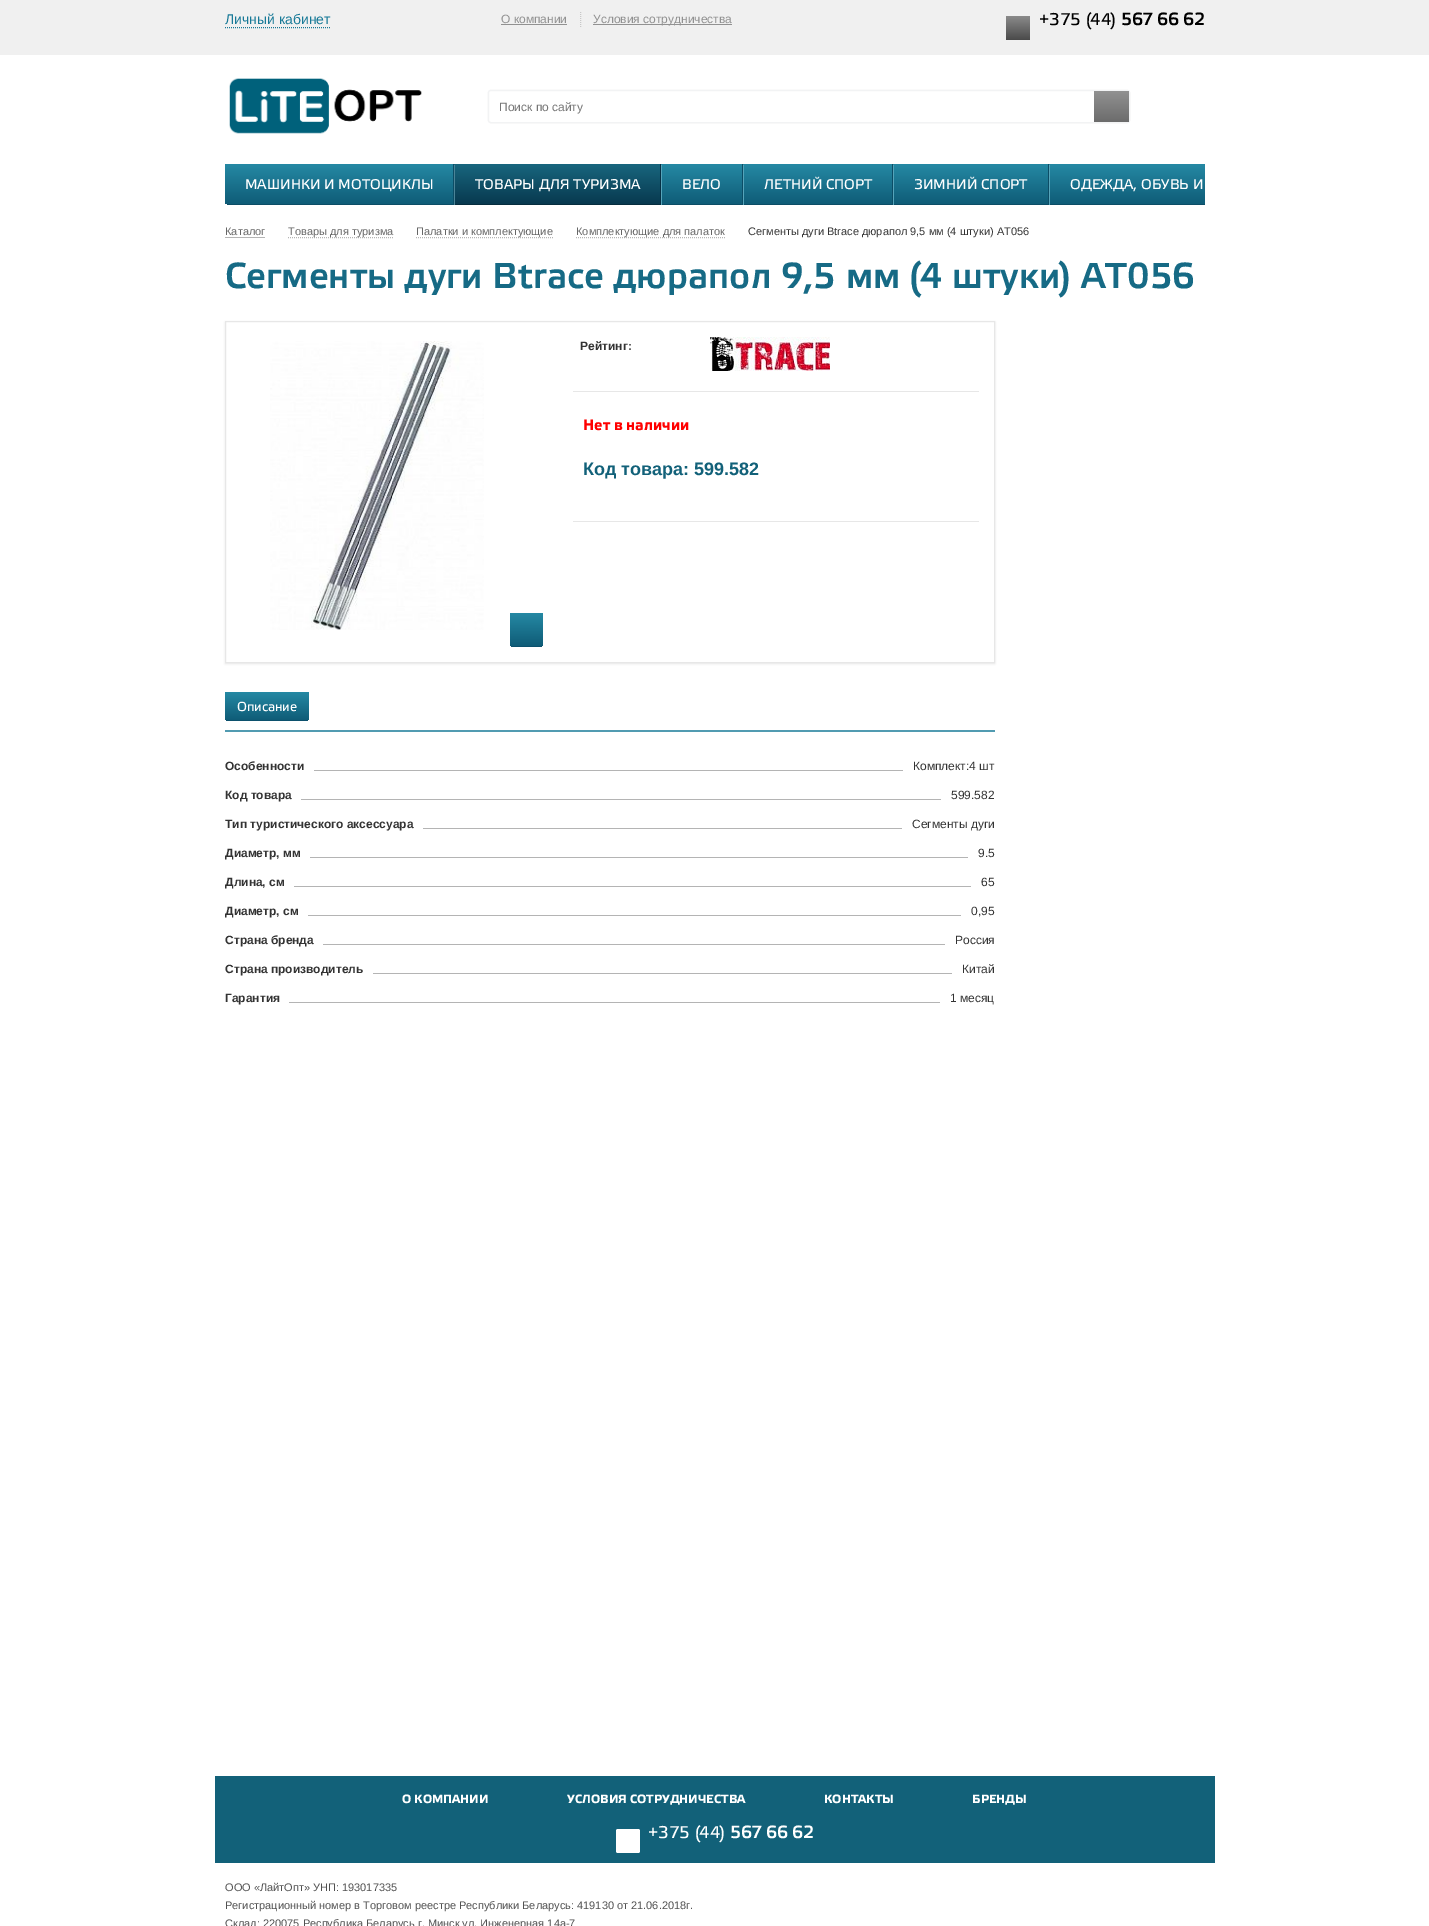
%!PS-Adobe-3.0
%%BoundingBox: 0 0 1429 1926
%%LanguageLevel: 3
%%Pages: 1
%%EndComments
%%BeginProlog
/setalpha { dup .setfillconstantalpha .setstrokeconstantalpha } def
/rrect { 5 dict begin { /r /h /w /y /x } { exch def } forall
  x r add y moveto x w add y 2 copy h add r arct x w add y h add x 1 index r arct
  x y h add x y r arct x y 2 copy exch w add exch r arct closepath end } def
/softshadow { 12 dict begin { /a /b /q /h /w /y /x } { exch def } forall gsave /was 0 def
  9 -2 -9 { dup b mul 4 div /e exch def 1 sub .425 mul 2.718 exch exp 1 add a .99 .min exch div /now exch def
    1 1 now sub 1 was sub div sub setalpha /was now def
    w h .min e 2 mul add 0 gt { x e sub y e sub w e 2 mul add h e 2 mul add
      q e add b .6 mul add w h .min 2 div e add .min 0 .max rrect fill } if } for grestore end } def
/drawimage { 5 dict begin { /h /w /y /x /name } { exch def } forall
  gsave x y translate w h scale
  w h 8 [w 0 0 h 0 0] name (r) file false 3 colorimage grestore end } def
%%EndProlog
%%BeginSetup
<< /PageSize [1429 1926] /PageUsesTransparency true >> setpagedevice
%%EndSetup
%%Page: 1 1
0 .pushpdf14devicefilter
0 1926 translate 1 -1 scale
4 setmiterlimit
1 setgray
0 0 1429 1926 rectfill
0.941 setgray
0 0 1429 55 rectfill
0.09 0.475 0.592 setrgbcolor
[1 1] 0 setdash
newpath 225 27.5 moveto 330 27.5 lineto stroke
0.569 setgray
501 24 66 1 rectfill
0.784 setgray
newpath 580.5 12 moveto 580.5 27 lineto stroke
0.569 setgray
593 24 139 1 rectfill
gsave 1006 16 24 24 2 rrect clip newpath
<< /ShadingType 2 /ColorSpace /DeviceRGB /Coords [1018 16 1018 40] /Extend [true true] /Function << /FunctionType 2 /Domain [0 1] /C0 [0.545 0.545 0.545] /C1 [0.29 0.29 0.29] /N 1 >> >> shfill grestore
(images/1.raw) 229 78 193 56 drawimage
0.929 setgray
488 90 642 33 3 0.5 1 softshadow
1 setgray
488.5 90.5 641 32 2.5 rrect gsave fill grestore
0.949 0.953 0.957 setrgbcolor
[] 0 setdash
stroke
gsave newpath 1094 91 moveto 1127 91 lineto 1128 91 1129 92 1129 93 curveto 1129 120 lineto 1129 121 1128 122 1127 122 curveto 1094 122 lineto closepath clip newpath
<< /ShadingType 2 /ColorSpace /DeviceRGB /Coords [1112 91 1112 122] /Extend [true true] /Function << /FunctionType 2 /Domain [0 1] /C0 [0.569 0.569 0.569] /C1 [0.424 0.424 0.424] /N 1 >> >> shfill grestore
gsave
225 164 980 41 3 rrect clip newpath
newpath 228 164 moveto 454 164 lineto 454 205 lineto 228 205 lineto 226.5 205 225 203.5 225 202 curveto 225 167 lineto 225 165.5 226.5 164 228 164 curveto closepath clip newpath
gsave newpath 228 164 moveto 454 164 lineto 454 204 lineto 225 204 lineto 225 167 lineto 225 165.5 226.5 164 228 164 curveto closepath clip newpath
<< /ShadingType 2 /ColorSpace /DeviceRGB /Coords [339 164 339 204] /Extend [true true] /Function << /FunctionType 2 /Domain [0 1] /C0 [0.145 0.537 0.643] /C1 [0.059 0.361 0.467] /N 1 >> >> shfill grestore
grestore
0.047 0.302 0.4 setrgbcolor
453 164 1 41 rectfill
227 204 227 1 rectfill
gsave newpath 454 164 moveto 660 164 lineto 660 204 lineto 454 204 lineto closepath clip newpath
<< /ShadingType 2 /ColorSpace /DeviceRGB /Coords [557 164 557 204] /Extend [true true] /Function << /FunctionType 2 /Domain [0 1] /C0 [0.094 0.4 0.494] /C1 [0.031 0.224 0.31] /N 1 >> >> shfill grestore
0.024 0.188 0.267 setrgbcolor
660 164 1 41 rectfill
0.024 0.176 0.243 setrgbcolor
454 204 207 1 rectfill
0.294 0.518 0.592 setrgbcolor
454 165 1 40 rectfill
gsave newpath 661 164 moveto 742 164 lineto 742 204 lineto 661 204 lineto closepath clip newpath
<< /ShadingType 2 /ColorSpace /DeviceRGB /Coords [702 164 702 204] /Extend [true true] /Function << /FunctionType 2 /Domain [0 1] /C0 [0.145 0.537 0.643] /C1 [0.059 0.361 0.467] /N 1 >> >> shfill grestore
0.047 0.302 0.4 setrgbcolor
742 164 1 41 rectfill
661 204 82 1 rectfill
0.337 0.643 0.729 setrgbcolor
661 165 1 40 rectfill
gsave newpath 743 164 moveto 892 164 lineto 892 204 lineto 743 204 lineto closepath clip newpath
<< /ShadingType 2 /ColorSpace /DeviceRGB /Coords [818 164 818 204] /Extend [true true] /Function << /FunctionType 2 /Domain [0 1] /C0 [0.145 0.537 0.643] /C1 [0.059 0.361 0.467] /N 1 >> >> shfill grestore
0.047 0.302 0.4 setrgbcolor
892 164 1 41 rectfill
743 204 150 1 rectfill
0.337 0.643 0.729 setrgbcolor
743 165 1 40 rectfill
gsave newpath 893 164 moveto 1048 164 lineto 1048 204 lineto 893 204 lineto closepath clip newpath
<< /ShadingType 2 /ColorSpace /DeviceRGB /Coords [971 164 971 204] /Extend [true true] /Function << /FunctionType 2 /Domain [0 1] /C0 [0.145 0.537 0.643] /C1 [0.059 0.361 0.467] /N 1 >> >> shfill grestore
0.047 0.302 0.4 setrgbcolor
1048 164 1 41 rectfill
893 204 156 1 rectfill
0.337 0.643 0.729 setrgbcolor
893 165 1 40 rectfill
gsave
225 164 980 41 3 rrect clip newpath
gsave newpath 1049 164 moveto 1202 164 lineto 1203.5 164 1205 165.5 1205 167 curveto 1205 204 lineto 1049 204 lineto closepath clip newpath
<< /ShadingType 2 /ColorSpace /DeviceRGB /Coords [1184 164 1184 204] /Extend [true true] /Function << /FunctionType 2 /Domain [0 1] /C0 [0.145 0.537 0.643] /C1 [0.059 0.361 0.467] /N 1 >> >> shfill grestore
0.047 0.302 0.4 setrgbcolor
1049 204 156 1 rectfill
grestore
1049 165 1 40 rectfill
0.706 setgray
225 237 40 1 rectfill
[1 1] 0 setdash
newpath 288 237.5 moveto 393 237.5 lineto stroke
newpath 416 237.5 moveto 553 237.5 lineto stroke
newpath 576 237.5 moveto 725 237.5 lineto stroke
gsave
newpath 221 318 moveto 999 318 lineto 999 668 lineto 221 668 lineto closepath 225 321 moveto 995 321 lineto 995 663 lineto 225 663 lineto closepath eoclip newpath
0.906 setgray
225 322 770 342 0 1 1 softshadow
grestore
0.906 setgray
[] 0 setdash
225.5 321.5 769 341 rectstroke
(images/2.raw) 270 341 214 289 drawimage
gsave
510 613 33 34 2 rrect clip newpath
gsave newpath 512 613 moveto 541 613 lineto 542 613 543 614 543 615 curveto 543 646 lineto 510 646 lineto 510 615 lineto 510 614 511 613 512 613 curveto closepath clip newpath
<< /ShadingType 2 /ColorSpace /DeviceRGB /Coords [527 613 527 646] /Extend [true true] /Function << /FunctionType 2 /Domain [0 1] /C0 [0.145 0.537 0.643] /C1 [0.059 0.361 0.467] /N 1 >> >> shfill grestore
grestore
0.047 0.318 0.427 setrgbcolor
511 646 31 1 rectfill
(images/3.raw) 710 337 120 34 drawimage
0.906 setgray
573 391 406 1 rectfill
573 521 406 1 rectfill
0.318 0.608 0.694 setrgbcolor
225 730 770 2 rectfill
gsave
225 692 84 29 2 rrect clip newpath
gsave newpath 227 692 moveto 307 692 lineto 308 692 309 693 309 694 curveto 309 720 lineto 225 720 lineto 225 694 lineto 225 693 226 692 227 692 curveto closepath clip newpath
<< /ShadingType 2 /ColorSpace /DeviceRGB /Coords [267 692 267 720] /Extend [true true] /Function << /FunctionType 2 /Domain [0 1] /C0 [0.145 0.537 0.643] /C1 [0.059 0.361 0.467] /N 1 >> >> shfill grestore
grestore
0.047 0.318 0.427 setrgbcolor
226 720 82 1 rectfill
0.706 setgray
314 770 589 1 rectfill
301 799 640 1 rectfill
423 828 479 1 rectfill
310 857 658 1 rectfill
294 886 677 1 rectfill
308 915 653 1 rectfill
323 944 622 1 rectfill
373 973 579 1 rectfill
289 1002 651 1 rectfill
0.071 0.38 0.475 setrgbcolor
215 1776 1000 87 rectfill
1 setgray
616 1829 24 24 2 rrect fill
/LiberationSans-Regular [14 0 0 -14 0 0] selectfont
0.09 0.475 0.592 setrgbcolor
225 24 moveto (Личный кабинет) show
/LiberationSans-Regular [12 0 0 -12 0 0] selectfont
0.569 setgray
501 23 moveto (О компании) show
593 23 moveto (Условия сотрудничества) show
/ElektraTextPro-Regular [17 0 0 -17 0 0] selectfont
0 setgray
1039 25 moveto (+375 \(44\)) show
/ElektraTextPro-Bold [17 0 0 -17 0 0] selectfont
1121 25 moveto (567 66 62) show
/LiberationSans-Regular [12 0 0 -12 0 0] selectfont
0.459 setgray
499 111 moveto (Поиск по сайту) show
/ElektraTextPro-Regular [14 0 0 -14 0 0] selectfont
1 setgray
245 189 moveto (МАШИНКИ И МОТОЦИКЛЫ) show
475 189 moveto (ТОВАРЫ ДЛЯ ТУРИЗМА) show
682 189 moveto (ВЕЛО) show
764 189 moveto (ЛЕТНИЙ СПОРТ) show
914 189 moveto (ЗИМНИЙ СПОРТ) show
1070 189 moveto (ОДЕЖДА, ОБУВЬ И) show
/LiberationSans-Regular [11 0 0 -11 0 0] selectfont
0.4 setgray
225 235 moveto (Каталог) show
288 235 moveto (Товары для туризма) show
416 235 moveto (Палатки и комплектующие) show
576 235 moveto (Комплектующие для палаток) show
0.2 setgray
748 235 moveto (Сегменты дуги Btrace дюрапол 9,5 мм \(4 штуки\) AT056) show
/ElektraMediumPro-Regular [36 0 0 -36 0 0] selectfont
0.086 0.416 0.522 setrgbcolor
225 288 moveto (Сегменты дуги Btrace дюрапол 9,5 мм \(4 штуки\) AT056) show
/LiberationSans-Bold [12 0 0 -12 0 0] selectfont
0.2 setgray
580 350 moveto (Рейтинг:) show
/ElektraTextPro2-Bold [15 0 0 -15 0 0] selectfont
1 0 0 setrgbcolor
583 430 moveto (Нет в наличии) show
/LiberationSans-Bold [18 0 0 -18 0 0] selectfont
0.071 0.38 0.475 setrgbcolor
583 475 moveto (Код товара: 599.582) show
/ElektraTextPro-Regular [13 0 0 -13 0 0] selectfont
1 setgray
237 711 moveto (Описание) show
/LiberationSans-Bold [12 0 0 -12 0 0] selectfont
0.2 setgray
225 770 moveto (Особенности) show
/LiberationSans-Regular [12 0 0 -12 0 0] selectfont
913 770 moveto (Комплект:4 шт) show
/LiberationSans-Bold [12 0 0 -12 0 0] selectfont
225 799 moveto (Код товара) show
/LiberationSans-Regular [12 0 0 -12 0 0] selectfont
951 799 moveto (599.582) show
/LiberationSans-Bold [12 0 0 -12 0 0] selectfont
225 828 moveto (Тип туристического аксессуара) show
/LiberationSans-Regular [12 0 0 -12 0 0] selectfont
912 828 moveto (Cегменты дуги) show
gsave
225 732 770 306 rectclip
/LiberationSans-Bold [12 0 0 -12 0 0] selectfont
225 857 moveto (Диаметр, мм) show
grestore
978 857 moveto (9.5) show
gsave
225 732 770 306 rectclip
/LiberationSans-Bold [12 0 0 -12 0 0] selectfont
225 886 moveto (Длина, см) show
grestore
981 886 moveto (65) show
gsave
225 732 770 306 rectclip
/LiberationSans-Bold [12 0 0 -12 0 0] selectfont
225 915 moveto (Диаметр, см) show
grestore
971 915 moveto (0,95) show
/LiberationSans-Bold [12 0 0 -12 0 0] selectfont
225 944 moveto (Страна бренда) show
/LiberationSans-Regular [12 0 0 -12 0 0] selectfont
955 944 moveto (Россия) show
/LiberationSans-Bold [12 0 0 -12 0 0] selectfont
225 973 moveto (Страна производитель) show
/LiberationSans-Regular [12 0 0 -12 0 0] selectfont
962 973 moveto (Китай) show
/LiberationSans-Bold [12 0 0 -12 0 0] selectfont
225 1002 moveto (Гарантия) show
/LiberationSans-Regular [12 0 0 -12 0 0] selectfont
950 1002 moveto (1 месяц) show
/ElektraTextPro2-Bold [12 0 0 -12 0 0] selectfont
1 setgray
402 1803 moveto (О КОМПАНИИ) show
567 1803 moveto (УСЛОВИЯ СОТРУДНИЧЕСТВА) show
824 1803 moveto (КОНТАКТЫ) show
972 1803 moveto (БРЕНДЫ) show
/ElektraTextPro-Regular [17 0 0 -17 0 0] selectfont
648 1838 moveto (+375 \(44\)) show
/ElektraTextPro-Bold [17 0 0 -17 0 0] selectfont
730 1838 moveto (567 66 62) show
/LiberationSans-Regular [11 0 0 -11 0 0] selectfont
0.318 setgray
225 1891 moveto (ООО «ЛайтОпт» УНП: 193017335) show
225 1909 moveto (Регистрационный номер в Торговом реестре Республики Беларусь: 419130 от 21.06.2018г.) show
225 1927 moveto (Склад: 220075 Республика Беларусь г. Минск ул. Инженерная 14а-7) show
.poppdf14devicefilter showpage
%%EOF
